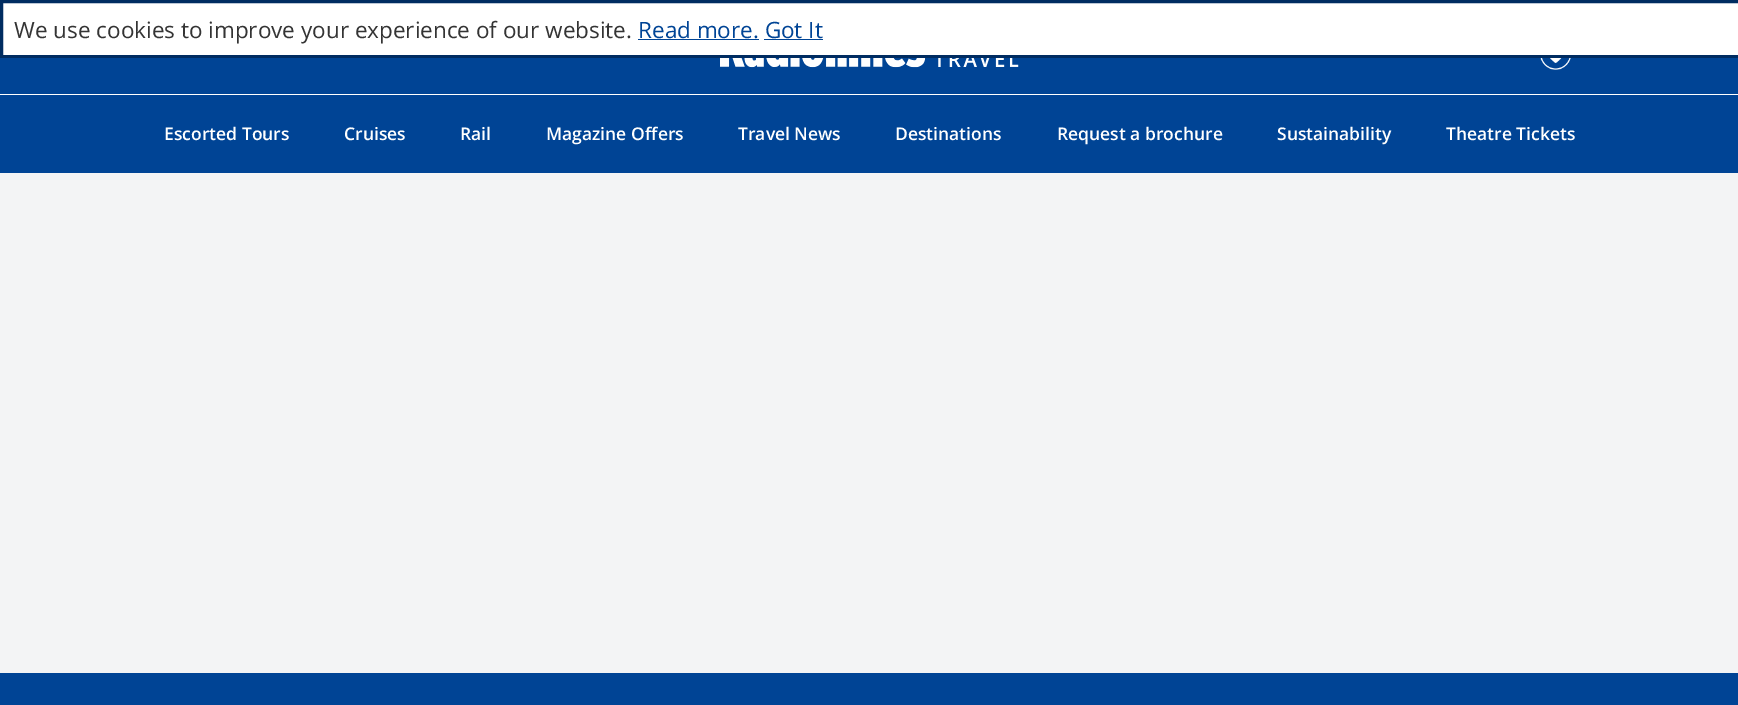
%!PS-Adobe-3.0
%%BoundingBox: 0 0 1738 705
%%LanguageLevel: 3
%%Pages: 1
%%EndComments
%%BeginProlog
/drawimage { 5 dict begin { /h /w /y /x /name } { exch def } forall
  gsave x y translate w h scale
  w h 8 [w 0 0 h 0 0] name (r) file false 3 colorimage grestore end } def
%%EndProlog
%%BeginSetup
<< /PageSize [1738 705] >> setpagedevice
%%EndSetup
%%Page: 1 1
0 705 translate 1 -1 scale
4 setmiterlimit
0.953 0.957 0.961 setrgbcolor
0 0 1738 705 rectfill
1 setgray
newpath 1.5 1.5 moveto 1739.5 1.5 lineto 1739.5 56.5 lineto 1.5 56.5 lineto closepath gsave fill grestore
0 0.173 0.38 setrgbcolor
3 setlinewidth
stroke
0 0.267 0.584 setrgbcolor
638 39 121 1 rectfill
764 39 59 1 rectfill
0 58 1738 115 rectfill
1 setgray
0 94 1738 1 rectfill
(images/1.raw) 720 58 299 10 drawimage
(images/2.raw) 1540 58 31 12 drawimage
0 0.267 0.584 setrgbcolor
0 673 1738 32 rectfill
/OpenSans-Regular [22.5 0 0 -22.5 0 0] selectfont
0.204 setgray
14 38 moveto (We use cookies to improve your experience of our website.) show
0 0.267 0.584 setrgbcolor
638 38 moveto (Read more. Got It) show
/OpenSans-SemiBold [17.5 0 0 -17.5 0 0] selectfont
1 setgray
164 140 moveto (Escorted Tours) show
344 140 moveto (Cruises) show
460 140 moveto (Rail) show
546 140 moveto (Magazine Offers) show
738 140 moveto (Travel News) show
895 140 moveto (Destinations) show
1057 140 moveto (Request a brochure) show
1277 140 moveto (Sustainability) show
1446 140 moveto (Theatre Tickets) show
showpage
%%EOF
